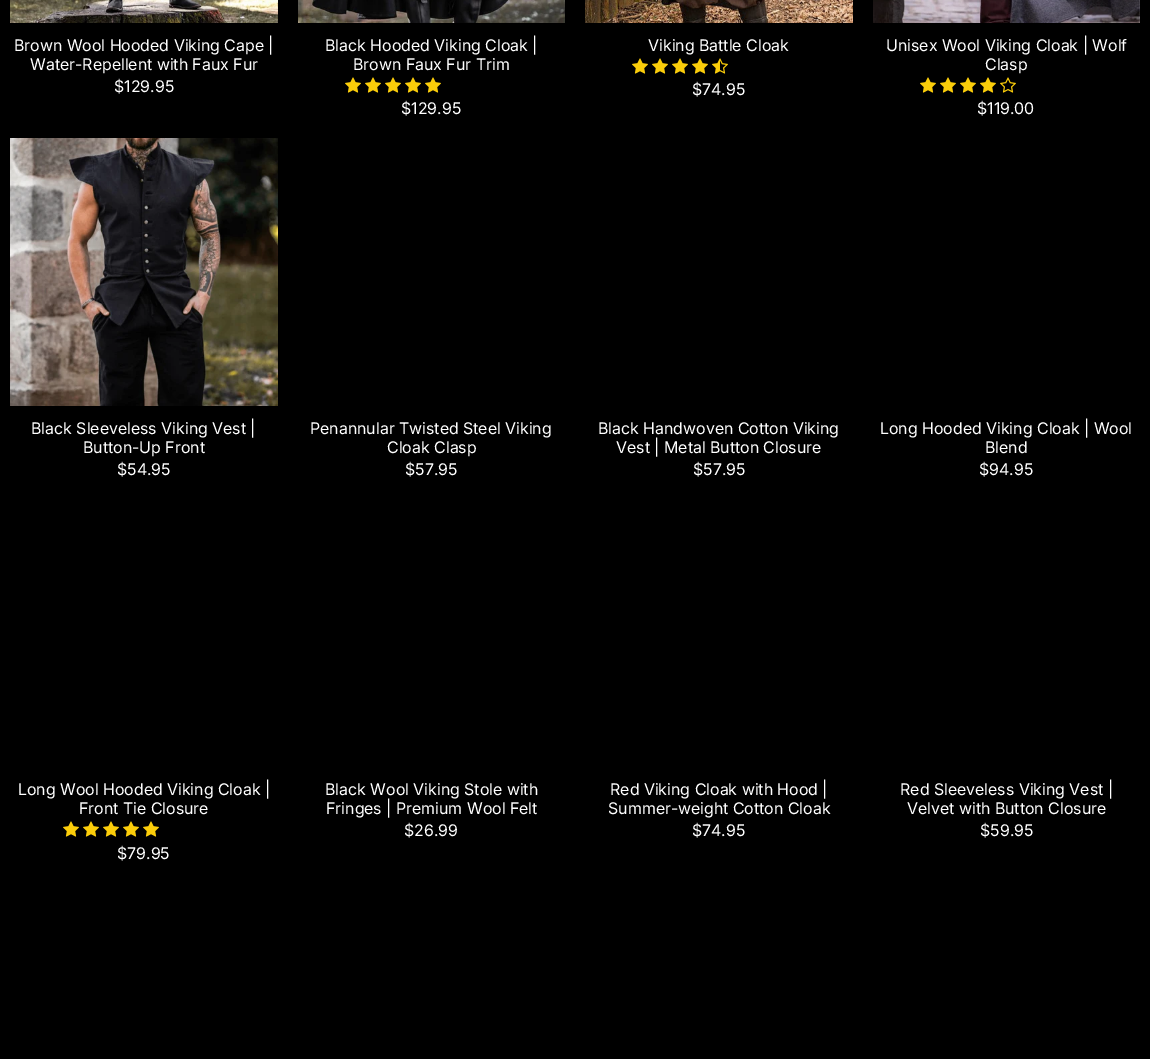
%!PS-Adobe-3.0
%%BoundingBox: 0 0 1150 1059
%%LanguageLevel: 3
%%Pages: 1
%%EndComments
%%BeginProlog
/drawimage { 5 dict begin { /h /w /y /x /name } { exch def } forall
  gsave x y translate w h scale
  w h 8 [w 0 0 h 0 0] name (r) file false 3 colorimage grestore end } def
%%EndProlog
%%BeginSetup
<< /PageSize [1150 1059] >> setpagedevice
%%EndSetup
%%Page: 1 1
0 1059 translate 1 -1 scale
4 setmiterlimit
0 setgray
0 0 1150 1059 rectfill
(images/1.raw) 10 0 268 23 drawimage
(images/2.raw) 298 0 267 23 drawimage
(images/3.raw) 345 77 16 16 drawimage
(images/3.raw) 365 77 16 16 drawimage
(images/3.raw) 385 77 16 16 drawimage
(images/3.raw) 405 77 16 16 drawimage
(images/3.raw) 425 77 16 16 drawimage
(images/4.raw) 585 0 268 23 drawimage
(images/3.raw) 632 58 16 16 drawimage
(images/3.raw) 652 58 16 16 drawimage
(images/3.raw) 672 58 16 16 drawimage
(images/3.raw) 692 58 16 16 drawimage
(images/5.raw) 712 58 16 16 drawimage
(images/6.raw) 873 0 267 23 drawimage
(images/3.raw) 920 77 16 16 drawimage
(images/3.raw) 940 77 16 16 drawimage
(images/3.raw) 960 77 16 16 drawimage
(images/3.raw) 980 77 16 16 drawimage
(images/7.raw) 1000 77 16 16 drawimage
(images/8.raw) 10 138 268 268 drawimage
(images/3.raw) 63 821 16 16 drawimage
(images/3.raw) 83 821 16 16 drawimage
(images/3.raw) 103 821 16 16 drawimage
(images/3.raw) 123 821 16 16 drawimage
(images/3.raw) 143 821 16 16 drawimage
/Inter-Regular [16 0 0 -16 0 0] selectfont
1 setgray
14 51 moveto (Brown Wool Hooded Viking Cape |) show
30 70 moveto (Water-Repellent with Faux Fur) show
114 92 moveto ($129.95) show
325 51 moveto (Black Hooded Viking Cloak |) show
353 70 moveto (Brown Faux Fur Trim) show
401 114 moveto ($129.95) show
648 51 moveto (Viking Battle Cloak) show
692 95 moveto ($74.95) show
886 51 moveto (Unisex Wool Viking Cloak | Wolf) show
985 70 moveto (Clasp) show
977 114 moveto ($119.00) show
31 434 moveto (Black Sleeveless Viking Vest |) show
83 453 moveto (Button-Up Front) show
117 475 moveto ($54.95) show
310 434 moveto (Penannular Twisted Steel Viking) show
387 453 moveto (Cloak Clasp) show
405 475 moveto ($57.95) show
598 434 moveto (Black Handwoven Cotton Viking) show
616 453 moveto (Vest | Metal Button Closure) show
693 475 moveto ($57.95) show
880 434 moveto (Long Hooded Viking Cloak | Wool) show
985 453 moveto (Blend) show
979 475 moveto ($94.95) show
18 795 moveto (Long Wool Hooded Viking Cloak |) show
79 814 moveto (Front Tie Closure) show
117 859 moveto ($79.95) show
325 795 moveto (Black Wool Viking Stole with) show
326 814 moveto (Fringes | Premium Wool Felt) show
404 836 moveto ($26.99) show
610 795 moveto (Red Viking Cloak with Hood |) show
608 814 moveto (Summer-weight Cotton Cloak) show
692 836 moveto ($74.95) show
900 795 moveto (Red Sleeveless Viking Vest |) show
907 814 moveto (Velvet with Button Closure) show
980 836 moveto ($59.95) show
showpage
%%EOF
